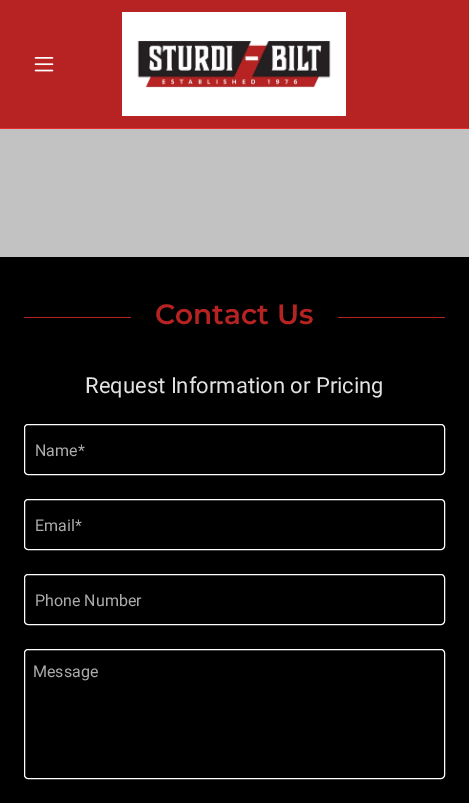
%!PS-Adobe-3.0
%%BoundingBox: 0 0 469 803
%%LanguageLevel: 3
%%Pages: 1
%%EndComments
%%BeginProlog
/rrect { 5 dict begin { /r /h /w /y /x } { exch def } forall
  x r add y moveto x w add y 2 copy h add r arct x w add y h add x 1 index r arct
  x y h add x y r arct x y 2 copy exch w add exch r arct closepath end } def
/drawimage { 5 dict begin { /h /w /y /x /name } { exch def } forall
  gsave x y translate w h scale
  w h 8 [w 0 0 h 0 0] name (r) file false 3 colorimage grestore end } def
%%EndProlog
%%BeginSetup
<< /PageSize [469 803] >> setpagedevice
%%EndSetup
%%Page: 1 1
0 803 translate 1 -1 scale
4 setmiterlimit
0.714 0.137 0.133 setrgbcolor
0 0 469 803 rectfill
(images/1.raw) 34 57 20 15 drawimage
1 setgray
122 12 224 104 rectfill
(images/2.raw) 137 40 194 48 drawimage
0.89 0.18 0.176 setrgbcolor
0 128 469 1 rectfill
0.761 setgray
0 129 469 128 rectfill
0 setgray
0 257 469 546 rectfill
0.714 0.137 0.133 setrgbcolor
24 317 107 1 rectfill
338 317 107 1 rectfill
1 setgray
24.5 424.5 420 50 3.5 rrect stroke
24.5 499.5 420 50 3.5 rrect stroke
24.5 574.5 420 50 3.5 rrect stroke
24.5 649.5 420 129 3.5 rrect stroke
/Montserrat-SemiBold [28 0 0 -28 0 0] selectfont
0.714 0.137 0.133 setrgbcolor
155 324 moveto (Contact Us) show
/Roboto-Regular [22 0 0 -22 0 0] selectfont
0.886 setgray
85 393 moveto (Request Information or Pricing) show
/Roboto-Regular [16 0 0 -16 0 0] selectfont
0.671 setgray
35 456 moveto (Name*) show
35 531 moveto (Email*) show
35 606 moveto (Phone Number) show
33 677 moveto (Message) show
showpage
%%EOF
